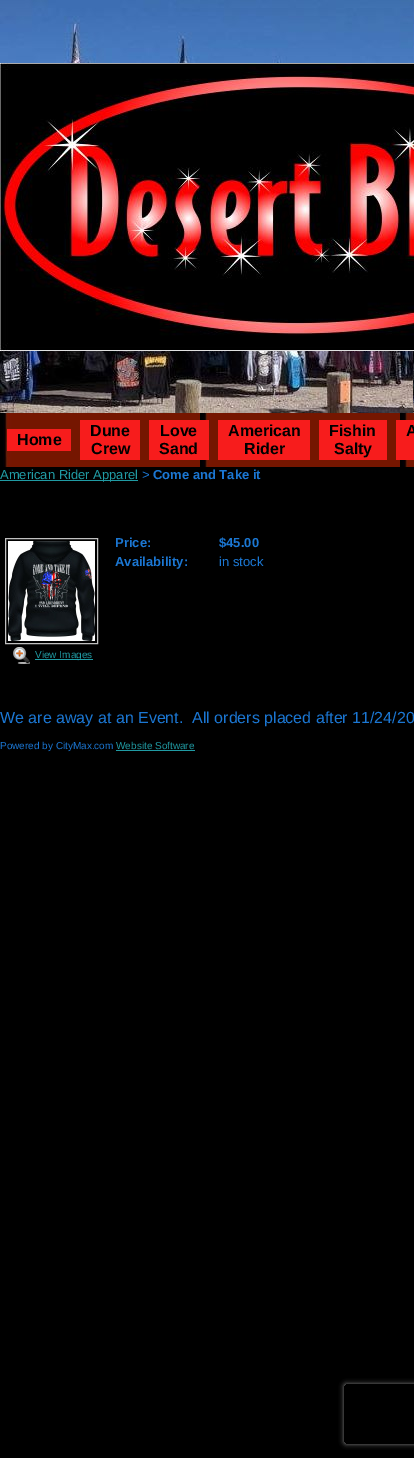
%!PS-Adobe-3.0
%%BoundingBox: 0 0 414 1458
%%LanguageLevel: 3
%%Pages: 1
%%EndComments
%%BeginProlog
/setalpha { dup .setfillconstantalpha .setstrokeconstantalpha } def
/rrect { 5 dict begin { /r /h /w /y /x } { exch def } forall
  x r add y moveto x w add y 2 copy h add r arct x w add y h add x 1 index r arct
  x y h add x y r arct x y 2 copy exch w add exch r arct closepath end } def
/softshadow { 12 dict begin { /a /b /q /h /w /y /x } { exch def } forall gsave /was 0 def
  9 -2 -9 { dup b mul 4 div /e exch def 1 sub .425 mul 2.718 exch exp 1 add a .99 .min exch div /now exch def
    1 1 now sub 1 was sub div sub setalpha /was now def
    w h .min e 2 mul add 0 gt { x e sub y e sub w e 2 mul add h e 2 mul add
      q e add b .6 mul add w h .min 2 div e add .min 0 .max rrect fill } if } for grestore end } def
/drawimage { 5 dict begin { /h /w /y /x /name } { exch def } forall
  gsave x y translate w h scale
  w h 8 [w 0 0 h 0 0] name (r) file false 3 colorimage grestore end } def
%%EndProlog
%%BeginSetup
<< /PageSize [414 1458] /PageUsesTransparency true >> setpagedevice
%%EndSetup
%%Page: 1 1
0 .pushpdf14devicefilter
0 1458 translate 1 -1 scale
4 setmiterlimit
0 setgray
0 0 414 1458 rectfill
(images/1.raw) 0 0 414 413 drawimage
(images/2.raw) 0 63 414 288 drawimage
(images/3.raw) 3 413 411 54 drawimage
0.969 0.11 0.11 setrgbcolor
80 420 60 40 rectfill
149 420 60 40 rectfill
218 420 92 40 rectfill
319 420 68 40 rectfill
396 420 18 40 rectfill
7 429 64 22 rectfill
0.125 0.608 0.643 setrgbcolor
0 480 138 1 rectfill
0.753 setgray
5.5 538.5 92 105 rectstroke
(images/4.raw) 8 541 87 100 drawimage
(images/5.raw) 13 647 17 17 drawimage
0.125 0.608 0.643 setrgbcolor
35 659 58 1 rectfill
116 750 79 1 rectfill
gsave
newpath 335 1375 moveto 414 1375 lineto 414 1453 lineto 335 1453 lineto closepath 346 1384 moveto 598 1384 lineto 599 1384 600 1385 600 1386 curveto 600 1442 lineto 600 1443 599 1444 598 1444 curveto 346 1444 lineto 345 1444 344 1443 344 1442 curveto 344 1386 lineto 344 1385 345 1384 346 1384 curveto closepath eoclip newpath
0.502 setgray
344 1384 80 60 2 2.5 1 softshadow
grestore
/LiberationSans-Bold [16 0 0 -16 0 0] selectfont
0 setgray
90 436 moveto (Dune) show
91 454 moveto (Crew) show
160 436 moveto (Love) show
159 454 moveto (Sand) show
228 436 moveto (American) show
244 454 moveto (Rider) show
329 436 moveto (Fishin) show
334 454 moveto (Salty) show
406 436 moveto (A) show
17 445 moveto (Home) show
/LiberationSans-Regular [13 0 0 -13 0 0] selectfont
0.125 0.608 0.643 setrgbcolor
0 479 moveto (American Rider Apparel) show
/LiberationMono-Regular [13 0 0 -13 0 0] selectfont
0.106 0.467 0.827 setrgbcolor
142 479 moveto (>) show
/LiberationSans-Bold [13 0 0 -13 0 0] selectfont
153 479 moveto (Come and Take it) show
115 547 moveto (Price:) show
219 547 moveto ($45.00) show
115 566 moveto (Availability:) show
/LiberationSans-Regular [13 0 0 -13 0 0] selectfont
219 566 moveto (in stock) show
/LiberationSans-Regular [10 0 0 -10 0 0] selectfont
0.125 0.608 0.643 setrgbcolor
35 658 moveto (View Images) show
/LiberationSans-Regular [16 0 0 -16 0 0] selectfont
0.106 0.467 0.827 setrgbcolor
0 723 moveto (We are away at an Event.  All orders placed after 11/24/20) show
/LiberationSans-Regular [10 0 0 -10 0 0] selectfont
0 749 moveto (Powered by CityMax.com) show
0.125 0.608 0.643 setrgbcolor
116 749 moveto (Website Software) show
.poppdf14devicefilter showpage
%%EOF
